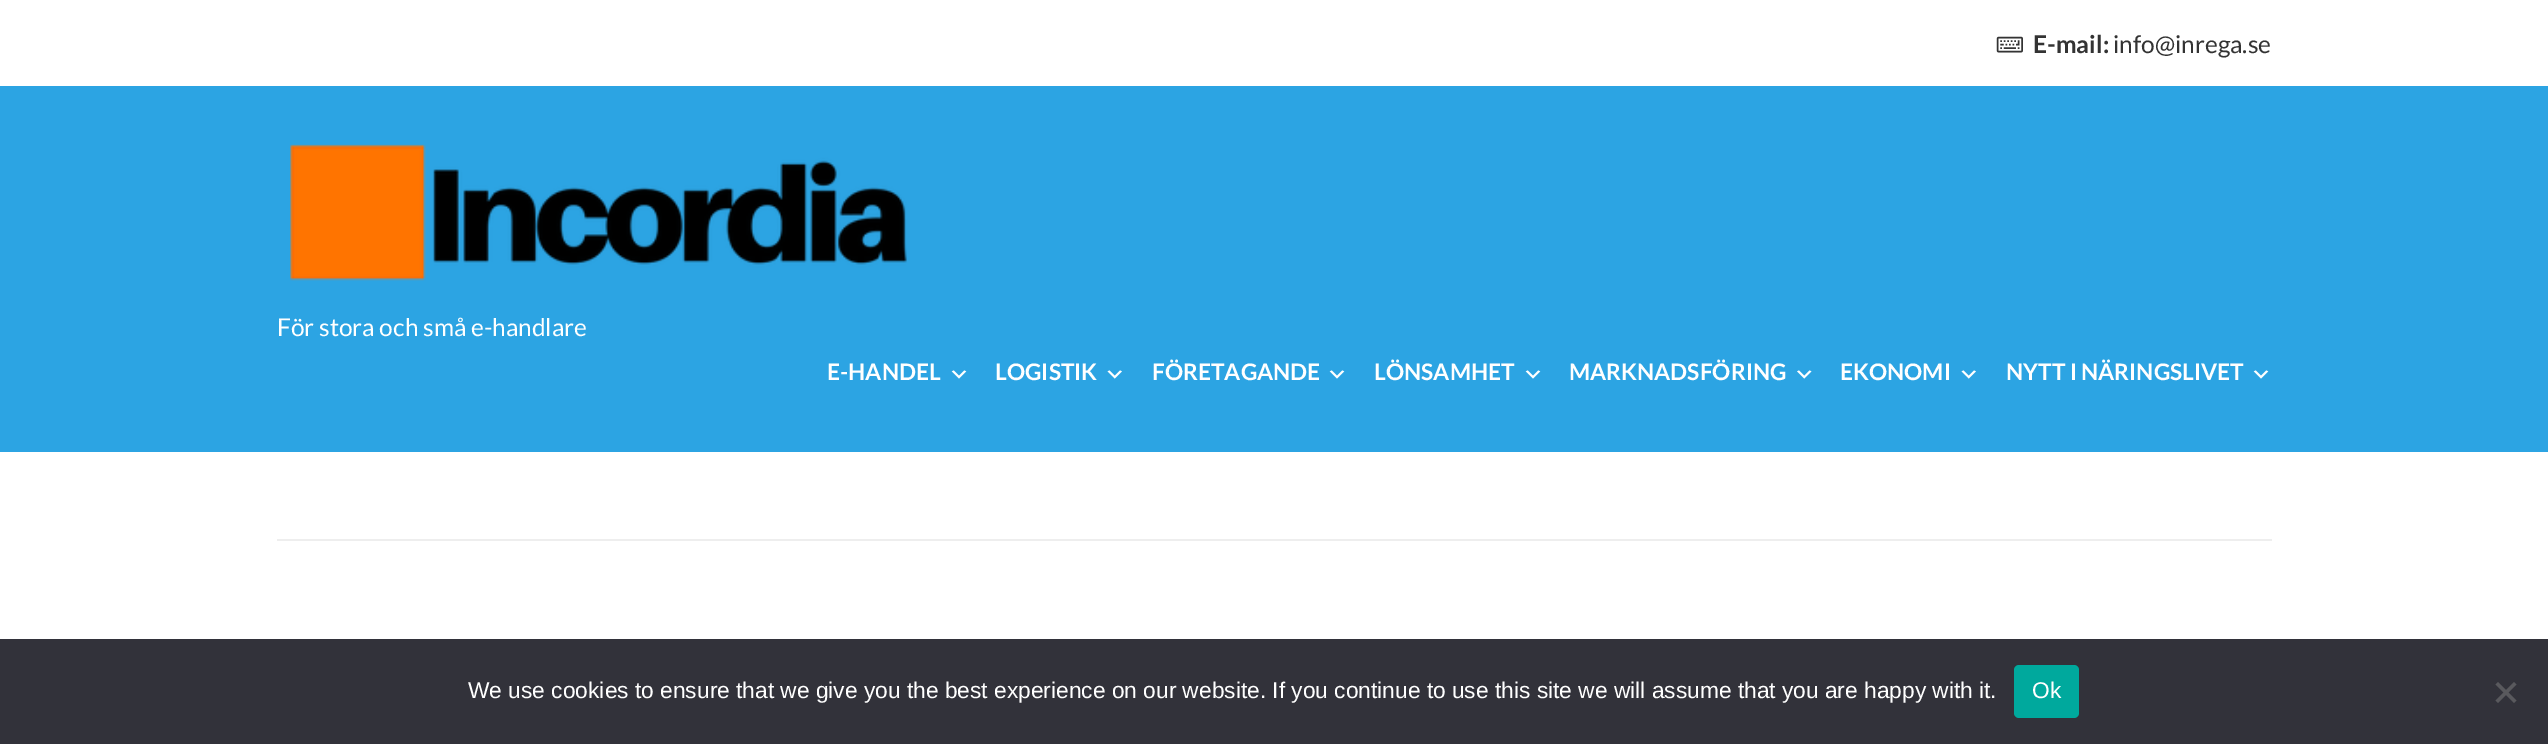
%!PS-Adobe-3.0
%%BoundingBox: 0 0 2548 744
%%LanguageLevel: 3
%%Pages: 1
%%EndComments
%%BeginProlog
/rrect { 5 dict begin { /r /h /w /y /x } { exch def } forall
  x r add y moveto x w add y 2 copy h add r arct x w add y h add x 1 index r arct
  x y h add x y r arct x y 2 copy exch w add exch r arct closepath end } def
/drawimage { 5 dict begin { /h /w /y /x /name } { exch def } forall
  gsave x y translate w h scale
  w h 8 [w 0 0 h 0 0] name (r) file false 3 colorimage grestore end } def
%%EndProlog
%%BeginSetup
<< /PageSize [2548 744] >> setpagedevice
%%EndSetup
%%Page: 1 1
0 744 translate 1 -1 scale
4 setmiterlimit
1 setgray
0 0 2548 744 rectfill
(images/1.raw) 1996 36 27 17 drawimage
0.173 0.643 0.89 setrgbcolor
0 86 2548 366 rectfill
(images/2.raw) 290 144 617 137 drawimage
(images/3.raw) 951 370 16 9 drawimage
(images/4.raw) 1107 370 15 9 drawimage
(images/3.raw) 1329 370 16 9 drawimage
(images/3.raw) 1525 370 16 9 drawimage
(images/5.raw) 1797 370 15 9 drawimage
(images/4.raw) 1961 370 15 9 drawimage
(images/3.raw) 2253 370 16 9 drawimage
0.933 setgray
277 539 1995 2 rectfill
0.196 0.196 0.227 setrgbcolor
0 639 2548 105 rectfill
0 0.663 0.616 setrgbcolor
2014 665 65 53 5 rrect fill
0.349 0.349 0.365 setrgbcolor
newpath 2514 682 moveto 2516.5 684.5 lineto 2498 703 lineto 2495.5 700.5 lineto closepath fill
newpath 2495.5 684.5 moveto 2498 682 lineto 2516.5 700.5 lineto 2514 703 lineto closepath fill
/Lato-Bold [24.5 0 0 -24.5 0 0] selectfont
0.2 setgray
2033 53 moveto (E-mail:) show
/Lato-Regular [24.5 0 0 -24.5 0 0] selectfont
2113 53 moveto (info@inrega.se) show
1 setgray
277 336 moveto (För stora och små e-handlare) show
/Lato-Bold [22.75 0 0 -22.75 0 0] selectfont
827 380 moveto (E-HANDEL) show
995 380 moveto (LOGISTIK) show
1152 380 moveto (FÖRETAGANDE) show
1374 380 moveto (LÖNSAMHET) show
1569 380 moveto (MARKNADSFÖRING) show
1840 380 moveto (EKONOMI) show
2006 380 moveto (NYTT I NÄRINGSLIVET) show
/LiberationSans-Regular [22.75 0 0 -22.75 0 0] selectfont
468 698 moveto (We use cookies to ensure that we give you the best experience on our website. If you continue to use this site we will assume that you are happy with it.) show
2032 698 moveto (Ok) show
showpage
%%EOF
